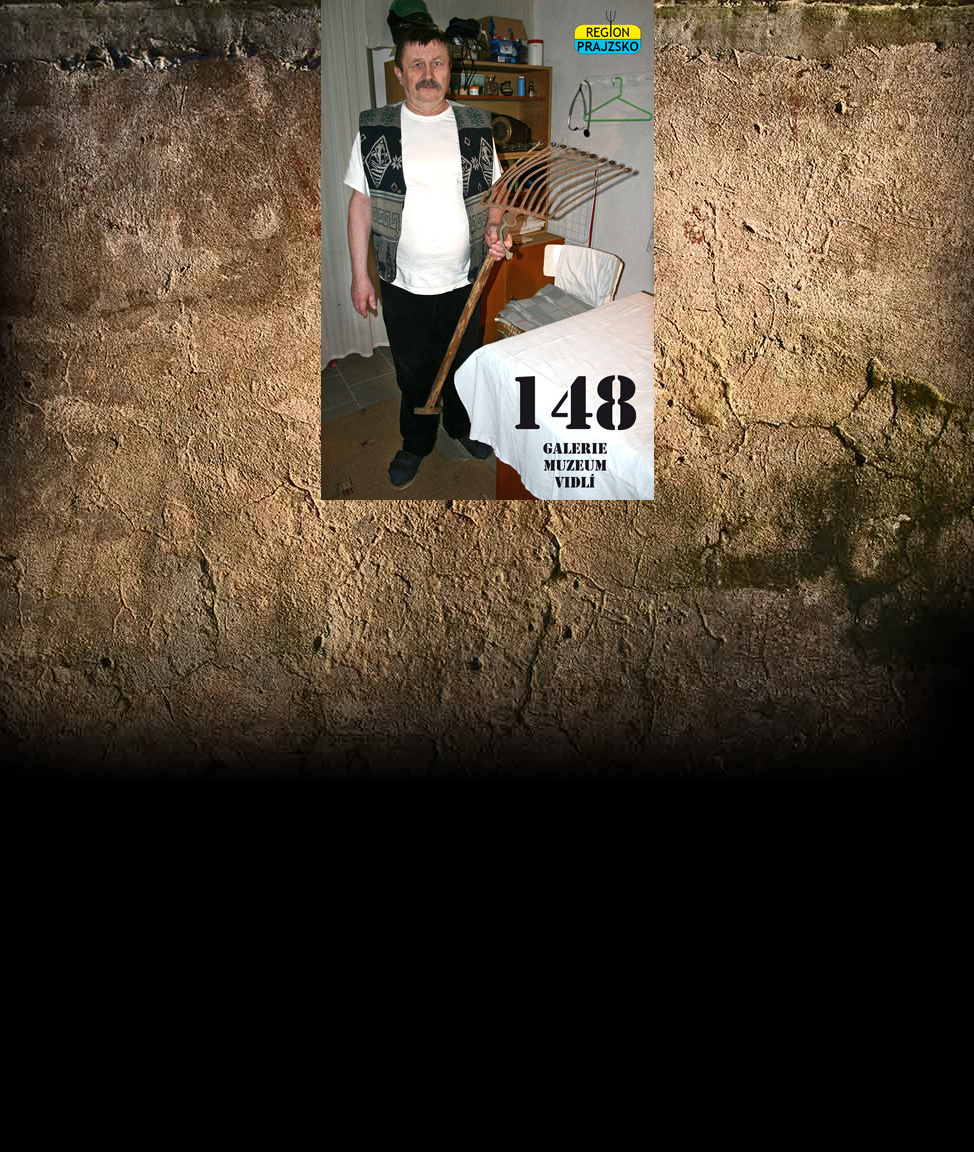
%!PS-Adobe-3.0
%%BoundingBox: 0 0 974 1152
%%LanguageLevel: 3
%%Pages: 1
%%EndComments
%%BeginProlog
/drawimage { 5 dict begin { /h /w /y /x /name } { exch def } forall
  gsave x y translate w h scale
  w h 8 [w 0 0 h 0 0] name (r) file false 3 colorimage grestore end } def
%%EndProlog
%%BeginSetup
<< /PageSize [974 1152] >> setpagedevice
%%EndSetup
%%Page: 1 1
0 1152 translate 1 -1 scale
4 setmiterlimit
0 setgray
0 0 974 1152 rectfill
(images/1.raw) 0 0 974 779 drawimage
(images/2.raw) 321 0 333 500 drawimage
showpage
%%EOF
